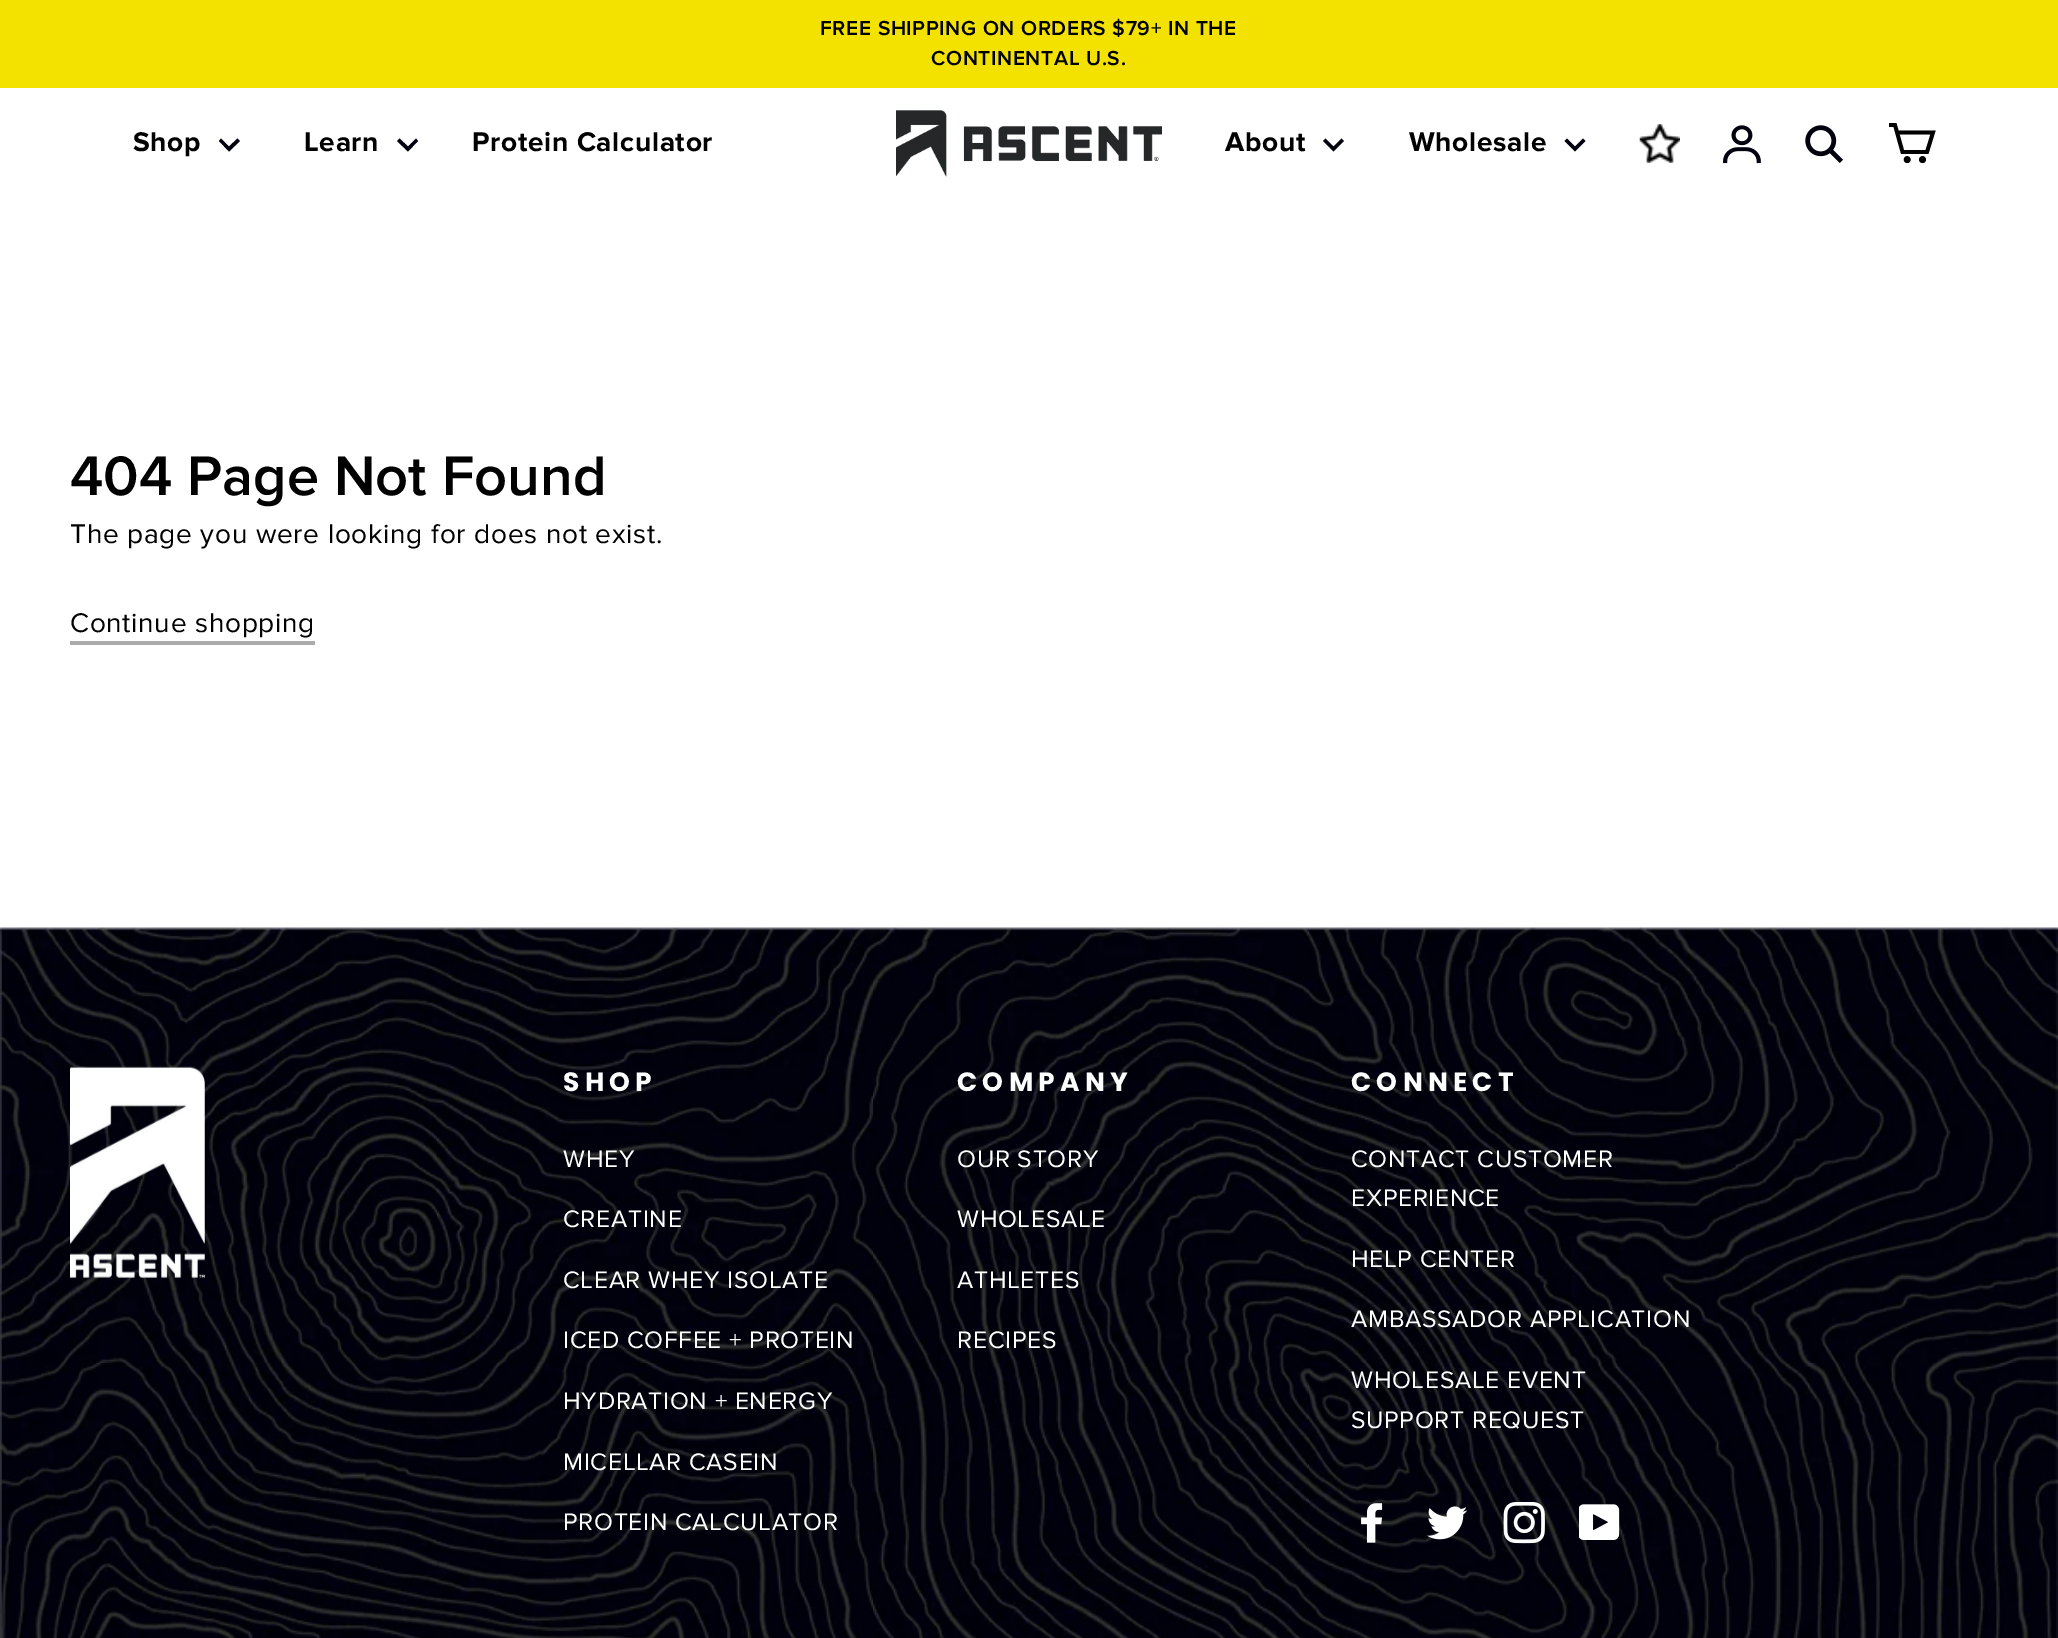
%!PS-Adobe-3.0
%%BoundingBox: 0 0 2058 1638
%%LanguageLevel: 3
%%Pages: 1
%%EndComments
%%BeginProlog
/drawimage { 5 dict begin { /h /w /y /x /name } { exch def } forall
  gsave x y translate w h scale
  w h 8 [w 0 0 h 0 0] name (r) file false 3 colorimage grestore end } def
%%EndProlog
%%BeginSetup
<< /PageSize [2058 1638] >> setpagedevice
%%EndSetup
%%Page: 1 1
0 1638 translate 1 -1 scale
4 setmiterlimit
1 setgray
0 0 2058 1638 rectfill
0.953 0.886 0 setrgbcolor
0 0 2058 88 rectfill
0 0 0.055 setrgbcolor
newpath 237.5 138.5 moveto 229 146.5 lineto 221 138.5 lineto 219 141 lineto 229 151.5 lineto 240 141 lineto closepath fill
newpath 416 138.5 moveto 408 146.5 lineto 399.5 138.5 lineto 397 141 lineto 408 151.5 lineto 418 141 lineto closepath fill
(images/1.raw) 896 110 266 67 drawimage
newpath 1341.5 138.5 moveto 1333.5 146.5 lineto 1325.5 138.5 lineto 1323 141 lineto 1333.5 151.5 lineto 1344 141 lineto closepath fill
newpath 1583 138.5 moveto 1575 146.5 lineto 1567 138.5 lineto 1564.5 141 lineto 1575 151.5 lineto 1585.5 141 lineto closepath fill
(images/2.raw) 1639 124 41 39 drawimage
(images/3.raw) 1723 125 38 39 drawimage
(images/4.raw) 1805 125 38 38 drawimage
0 setgray
3.8 setlinewidth
newpath 1897 132.5 moveto 1933 132.5 lineto 1927 152 lineto 1902.5 152 lineto 1895 125 lineto 1889 125 lineto stroke
newpath 1907.2 159.6 1.5 0 360 arc closepath gsave fill grestore
stroke
newpath 1922.5 159.6 1.5 0 360 arc closepath gsave fill grestore
stroke
0.671 setgray
70 641 245 4 rectfill
(images/5.raw) 0 927 2058 711 drawimage
(images/6.raw) 70 1066 135 212 drawimage
(images/7.raw) 1361 1503 22 40 drawimage
(images/8.raw) 1427 1506 41 34 drawimage
(images/9.raw) 1503 1502 42 42 drawimage
(images/10.raw) 1579 1504 41 36 drawimage
/ProximaNova-SemiBold [21 0 0 -21 0 0] selectfont
0 setgray
820 35 moveto 0.6 0 (FREE SHIPPING ON ORDERS $79+ IN THE) ashow
931 65 moveto 0.6 0 (CONTINENTAL U.S.) ashow
/ProximaNova-Bold [28 0 0 -28 0 0] selectfont
133 151 moveto 0.7 0 (Shop) ashow
304 151 moveto 0.7 0 (Learn) ashow
472 151 moveto 0.7 0 (Protein Calculator) ashow
1225 151 moveto 0.7 0 (About) ashow
1409 151 moveto 0.7 0 (Wholesale) ashow
/ProximaNova-SemiBold [57.75 0 0 -57.75 0 0] selectfont
70 495 moveto (404 Page Not Found) show
/ProximaNova-Regular [28 0 0 -28 0 0] selectfont
70 543 moveto 0.7 0 (The page you were looking for does not exist.) ashow
70 632 moveto 0.7 0 (Continue shopping) ashow
/Poppins-Bold [26.5 0 0 -26.5 0 0] selectfont
1 setgray
563 1091 moveto 5.25 0 (SHOP) ashow
/ProximaNova-Regular [24.75 0 0 -24.75 0 0] selectfont
563 1167 moveto 0.7 0 (WHEY) ashow
563 1227 moveto 0.7 0 (CREATINE) ashow
563 1288 moveto 0.7 0 (CLEAR WHEY ISOLATE) ashow
563 1348 moveto 0.7 0 (ICED COFFEE + PROTEIN) ashow
563 1409 moveto 0.7 0 (HYDRATION + ENERGY) ashow
563 1470 moveto 0.7 0 (MICELLAR CASEIN) ashow
563 1530 moveto 0.7 0 (PROTEIN CALCULATOR) ashow
/Poppins-Bold [26.5 0 0 -26.5 0 0] selectfont
957 1091 moveto 5.25 0 (COMPANY) ashow
/ProximaNova-Regular [24.75 0 0 -24.75 0 0] selectfont
957 1167 moveto 0.7 0 (OUR STORY) ashow
957 1227 moveto 0.7 0 (WHOLESALE) ashow
957 1288 moveto 0.7 0 (ATHLETES) ashow
957 1348 moveto 0.7 0 (RECIPES) ashow
/Poppins-Bold [26.5 0 0 -26.5 0 0] selectfont
1351 1091 moveto 5.25 0 (CONNECT) ashow
/ProximaNova-Regular [24.75 0 0 -24.75 0 0] selectfont
1351 1167 moveto 0.7 0 (CONTACT CUSTOMER) ashow
1351 1206 moveto 0.7 0 (EXPERIENCE) ashow
1351 1267 moveto 0.7 0 (HELP CENTER) ashow
1351 1327 moveto 0.7 0 (AMBASSADOR APPLICATION) ashow
1351 1388 moveto 0.7 0 (WHOLESALE EVENT) ashow
1351 1428 moveto 0.7 0 (SUPPORT REQUEST) ashow
showpage
%%EOF
